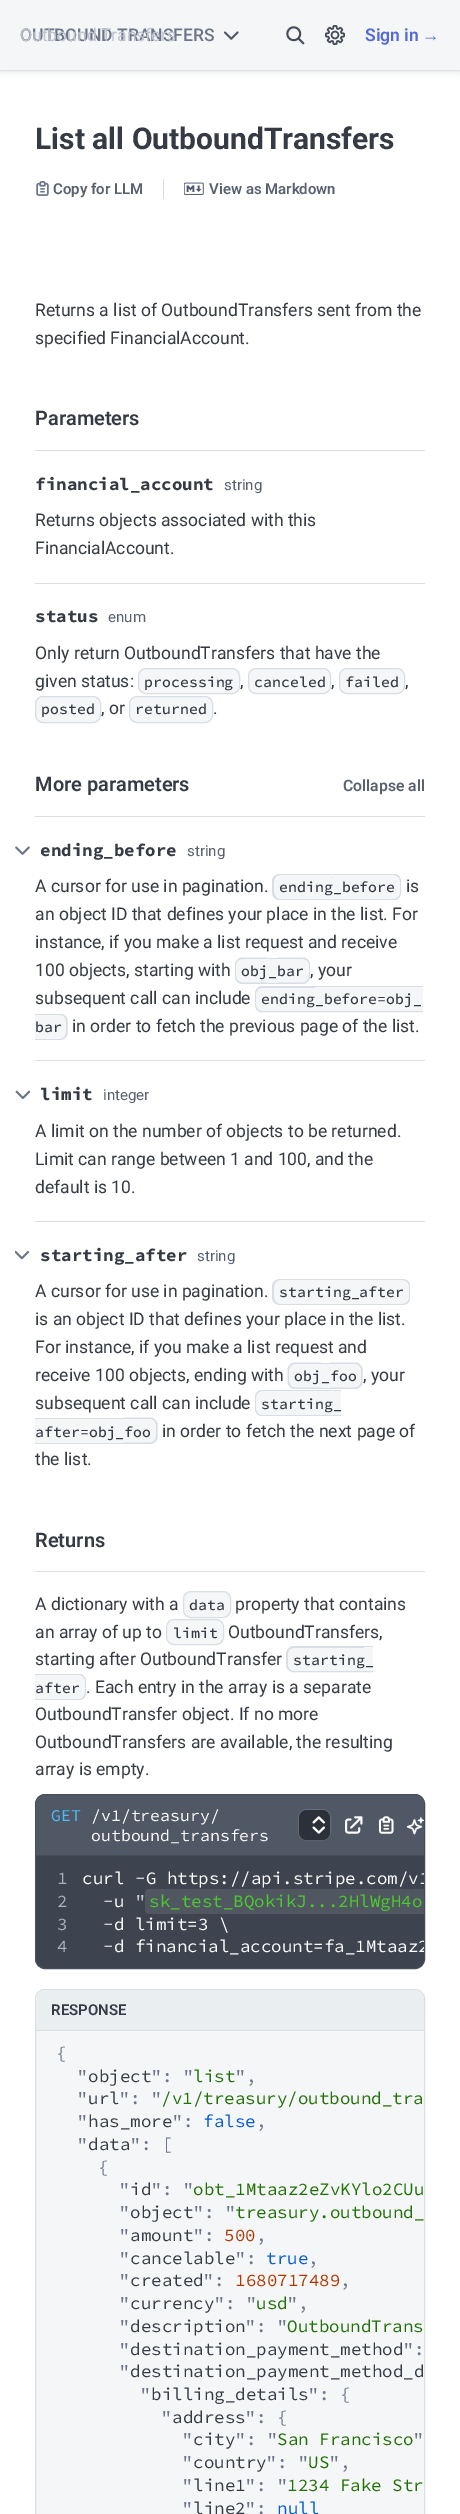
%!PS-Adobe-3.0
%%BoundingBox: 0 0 460 2514
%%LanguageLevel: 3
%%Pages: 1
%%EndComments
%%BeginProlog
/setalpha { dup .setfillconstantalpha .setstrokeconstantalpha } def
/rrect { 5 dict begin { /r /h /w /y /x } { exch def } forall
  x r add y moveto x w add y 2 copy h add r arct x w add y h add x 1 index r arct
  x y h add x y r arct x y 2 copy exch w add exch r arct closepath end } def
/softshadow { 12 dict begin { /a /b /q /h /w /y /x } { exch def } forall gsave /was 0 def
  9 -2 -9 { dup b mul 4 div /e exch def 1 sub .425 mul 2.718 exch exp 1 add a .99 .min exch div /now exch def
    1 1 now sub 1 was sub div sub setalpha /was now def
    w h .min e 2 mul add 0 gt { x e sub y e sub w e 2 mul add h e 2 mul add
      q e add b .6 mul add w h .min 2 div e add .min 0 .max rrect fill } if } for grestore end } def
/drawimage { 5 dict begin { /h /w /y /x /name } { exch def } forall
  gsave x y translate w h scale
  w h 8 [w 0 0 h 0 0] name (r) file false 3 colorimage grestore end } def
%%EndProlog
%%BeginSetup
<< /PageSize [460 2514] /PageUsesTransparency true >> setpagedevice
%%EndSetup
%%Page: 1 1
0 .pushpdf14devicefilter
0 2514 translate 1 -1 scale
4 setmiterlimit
1 setgray
0 0 460 2514 rectfill
0 setgray
0 1 460 70 0 0.5 0.07 softshadow
0.231 0.255 0.369 setrgbcolor
0 3 460 70 0 3 0.1 softshadow
0.961 0.965 0.973 setrgbcolor
0 0 460 70 rectfill
(images/1.raw) 224 31 15 9 drawimage
(images/2.raw) 286 26 19 19 drawimage
(images/3.raw) 325 25 20 20 drawimage
(images/4.raw) 36 181 13 15 drawimage
0.847 0.871 0.894 setrgbcolor
163 179 1 20 rectfill
(images/5.raw) 184 182 20 13 drawimage
35 450 390 1 rectfill
35 583 390 1 rectfill
0.961 0.965 0.973 setrgbcolor
138.5 668.5 101 25 7.5 rrect gsave fill grestore
0.847 0.871 0.894 setrgbcolor
stroke
0.961 0.965 0.973 setrgbcolor
248.5 668.5 82 25 7.5 rrect gsave fill grestore
0.847 0.871 0.894 setrgbcolor
stroke
0.961 0.965 0.973 setrgbcolor
339.5 668.5 65 25 7.5 rrect gsave fill grestore
0.847 0.871 0.894 setrgbcolor
stroke
0.961 0.965 0.973 setrgbcolor
35.5 696.5 65 26 7.5 rrect gsave fill grestore
0.847 0.871 0.894 setrgbcolor
stroke
0.961 0.965 0.973 setrgbcolor
129.5 696.5 83 26 7.5 rrect gsave fill grestore
0.847 0.871 0.894 setrgbcolor
stroke
35 816 390 1 rectfill
(images/6.raw) 15 846 15 9 drawimage
0.961 0.965 0.973 setrgbcolor
newpath 281 874 moveto 333 874 lineto 333 900 lineto 281 900 lineto 276.5 900 273 896.5 273 892 curveto 273 882 lineto 273 877.5 276.5 874 281 874 curveto closepath fill
0.847 0.871 0.894 setrgbcolor
newpath 280 874 moveto 332 874 lineto 332 900 lineto 280 900 lineto 276 900 272 897 272 892 curveto 272 881 lineto 272 877 276 874 280 874 curveto closepath 280 875 moveto 332 875 lineto 332 899 lineto 280 899 lineto 277 899 274 896 274 892 curveto 274 881 lineto 274 878 277 875 280 875 curveto closepath eofill
0.961 0.965 0.973 setrgbcolor
333 874 8 26 rectfill
0.847 0.871 0.894 setrgbcolor
333 874 8 1 rectfill
333 899 8 1 rectfill
0.961 0.965 0.973 setrgbcolor
newpath 341 874 moveto 393 874 lineto 397.5 874 401 877.5 401 882 curveto 401 892 lineto 401 896.5 397.5 900 393 900 curveto 341 900 lineto closepath fill
0.847 0.871 0.894 setrgbcolor
newpath 341 874 moveto 394 874 lineto 398 874 401 877 401 881 curveto 401 892 lineto 401 897 398 900 394 900 curveto 341 900 lineto closepath 341 875 moveto 394 875 lineto 397 875 400 878 400 881 curveto 400 892 lineto 400 896 397 899 394 899 curveto 341 899 lineto closepath eofill
0.961 0.965 0.973 setrgbcolor
newpath 243 958 moveto 268 958 lineto 268 984 lineto 243 984 lineto 238.5 984 235 980.5 235 976 curveto 235 966 lineto 235 961.5 238.5 958 243 958 curveto closepath fill
0.847 0.871 0.894 setrgbcolor
newpath 242.5 957.5 moveto 267.5 957.5 lineto 267.5 984 lineto 242.5 984 lineto 238.5 984 235 980.5 235 976 curveto 235 965 lineto 235 961 238.5 957.5 242.5 957.5 curveto closepath 242.5 959 moveto 267.5 959 lineto 267.5 982.5 lineto 242.5 982.5 lineto 239 982.5 236 979.5 236 976 curveto 236 965 lineto 236 961.5 239 959 242.5 959 curveto closepath eofill
0.961 0.965 0.973 setrgbcolor
268 959 10 24 rectfill
0.847 0.871 0.894 setrgbcolor
268 958 10 1 rectfill
268 983 10 1 rectfill
0.961 0.965 0.973 setrgbcolor
newpath 278 958 moveto 302 958 lineto 306.5 958 310 961.5 310 966 curveto 310 976 lineto 310 980.5 306.5 984 302 984 curveto 278 984 lineto closepath fill
0.847 0.871 0.894 setrgbcolor
newpath 277.5 957.5 moveto 302.5 957.5 lineto 306.5 957.5 310 961 310 965 curveto 310 976 lineto 310 980.5 306.5 984 302.5 984 curveto 277.5 984 lineto closepath 277.5 959 moveto 302.5 959 lineto 306 959 309 961.5 309 965 curveto 309 976 lineto 309 979.5 306 982.5 302.5 982.5 curveto 277.5 982.5 lineto closepath eofill
0.961 0.965 0.973 setrgbcolor
newpath 263 986 moveto 315 986 lineto 315 1013 lineto 263 1013 lineto 258.5 1013 255 1009.5 255 1005 curveto 255 994 lineto 255 989.5 258.5 986 263 986 curveto closepath fill
0.847 0.871 0.894 setrgbcolor
newpath 262 986 moveto 315 986 lineto 315 1012 lineto 262 1012 lineto 258 1012 255 1009 255 1005 curveto 255 994 lineto 255 990 258 986 262 986 curveto closepath 262 988 moveto 315 988 lineto 315 1011 lineto 262 1011 lineto 259 1011 256 1008 256 1005 curveto 256 994 lineto 256 990 259 988 262 988 curveto closepath eofill
0.961 0.965 0.973 setrgbcolor
315 987 108 26 rectfill
0.847 0.871 0.894 setrgbcolor
315 986 108 1 rectfill
315 1011 108 1 rectfill
0.961 0.965 0.973 setrgbcolor
newpath 35 1014 moveto 60 1014 lineto 64.5 1014 68 1017.5 68 1022 curveto 68 1032 lineto 68 1036.5 64.5 1040 60 1040 curveto 35 1040 lineto closepath fill
0.847 0.871 0.894 setrgbcolor
newpath 35 1014 moveto 60 1014 lineto 64 1014 67.5 1017 67.5 1021 curveto 67.5 1032.5 lineto 67.5 1036.5 64 1040 60 1040 curveto 35 1040 lineto closepath 35 1015 moveto 60 1015 lineto 63.5 1015 66 1018 66 1021 curveto 66 1032.5 lineto 66 1036 63.5 1039 60 1039 curveto 35 1039 lineto closepath eofill
35 1060 390 1 rectfill
(images/7.raw) 15 1090 15 9 drawimage
35 1221 390 1 rectfill
(images/8.raw) 15 1250 15 10 drawimage
0.961 0.965 0.973 setrgbcolor
newpath 281 1279 moveto 350 1279 lineto 350 1305 lineto 281 1305 lineto 276.5 1305 273 1301.5 273 1297 curveto 273 1287 lineto 273 1282.5 276.5 1279 281 1279 curveto closepath fill
0.847 0.871 0.894 setrgbcolor
newpath 280 1279 moveto 350 1279 lineto 350 1305 lineto 280 1305 lineto 276 1305 272 1302 272 1298 curveto 272 1286 lineto 272 1282 276 1279 280 1279 curveto closepath 280 1280 moveto 350 1280 lineto 350 1304 lineto 280 1304 lineto 277 1304 274 1301 274 1298 curveto 274 1286 lineto 274 1283 277 1280 280 1280 curveto closepath eofill
0.961 0.965 0.973 setrgbcolor
350 1280 10 24 rectfill
0.847 0.871 0.894 setrgbcolor
350 1279 10 1 rectfill
350 1304 10 1 rectfill
0.961 0.965 0.973 setrgbcolor
newpath 360 1279 moveto 402 1279 lineto 406.5 1279 410 1282.5 410 1287 curveto 410 1297 lineto 410 1301.5 406.5 1305 402 1305 curveto 360 1305 lineto closepath fill
0.847 0.871 0.894 setrgbcolor
newpath 360 1279 moveto 402 1279 lineto 407 1279 410 1282 410 1286 curveto 410 1298 lineto 410 1302 407 1305 402 1305 curveto 360 1305 lineto closepath 360 1280 moveto 402 1280 lineto 406 1280 409 1283 409 1286 curveto 409 1298 lineto 409 1301 406 1304 402 1304 curveto 360 1304 lineto closepath eofill
0.961 0.965 0.973 setrgbcolor
newpath 296 1363 moveto 321 1363 lineto 321 1389 lineto 296 1389 lineto 291.5 1389 288 1385.5 288 1381 curveto 288 1371 lineto 288 1366.5 291.5 1363 296 1363 curveto closepath fill
0.847 0.871 0.894 setrgbcolor
newpath 295 1362.5 moveto 321 1362.5 lineto 321 1389 lineto 295 1389 lineto 291 1389 287.5 1385.5 287.5 1381 curveto 287.5 1370 lineto 287.5 1366 291 1362.5 295 1362.5 curveto closepath 295 1364 moveto 321 1364 lineto 321 1387.5 lineto 295 1387.5 lineto 291.5 1387.5 289 1384.5 289 1381 curveto 289 1370 lineto 289 1366.5 291.5 1364 295 1364 curveto closepath eofill
0.961 0.965 0.973 setrgbcolor
321 1364 9 24 rectfill
0.847 0.871 0.894 setrgbcolor
321 1363 9 1 rectfill
321 1388 9 1 rectfill
0.961 0.965 0.973 setrgbcolor
newpath 330 1363 moveto 355 1363 lineto 359.5 1363 363 1366.5 363 1371 curveto 363 1381 lineto 363 1385.5 359.5 1389 355 1389 curveto 330 1389 lineto closepath fill
0.847 0.871 0.894 setrgbcolor
newpath 330 1362.5 moveto 355 1362.5 lineto 359 1362.5 362.5 1366 362.5 1370 curveto 362.5 1381 lineto 362.5 1385.5 359 1389 355 1389 curveto 330 1389 lineto closepath 330 1364 moveto 355 1364 lineto 358.5 1364 361 1366.5 361 1370 curveto 361 1381 lineto 361 1384.5 358.5 1387.5 355 1387.5 curveto 330 1387.5 lineto closepath eofill
0.961 0.965 0.973 setrgbcolor
newpath 263 1390 moveto 333 1390 lineto 333 1416 lineto 263 1416 lineto 258.5 1416 255 1412.5 255 1408 curveto 255 1398 lineto 255 1393.5 258.5 1390 263 1390 curveto closepath fill
0.847 0.871 0.894 setrgbcolor
newpath 262 1390 moveto 332 1390 lineto 332 1416 lineto 262 1416 lineto 258 1416 255 1413 255 1409 curveto 255 1398 lineto 255 1393 258 1390 262 1390 curveto closepath 262 1391 moveto 332 1391 lineto 332 1415 lineto 262 1415 lineto 259 1415 256 1412 256 1409 curveto 256 1398 lineto 256 1394 259 1391 262 1391 curveto closepath eofill
0.961 0.965 0.973 setrgbcolor
333 1390 8 26 rectfill
0.847 0.871 0.894 setrgbcolor
333 1390 8 1 rectfill
333 1415 8 1 rectfill
0.961 0.965 0.973 setrgbcolor
35 1419 89 24 rectfill
0.847 0.871 0.894 setrgbcolor
35 1418 89 1 rectfill
35 1443 89 1 rectfill
0.961 0.965 0.973 setrgbcolor
newpath 124 1418 moveto 150 1418 lineto 154.5 1418 158 1421.5 158 1426 curveto 158 1436 lineto 158 1440.5 154.5 1444 150 1444 curveto 124 1444 lineto closepath fill
0.847 0.871 0.894 setrgbcolor
newpath 124 1417.5 moveto 150 1417.5 lineto 154 1417.5 157.5 1421 157.5 1425 curveto 157.5 1436 lineto 157.5 1440.5 154 1444 150 1444 curveto 124 1444 lineto closepath 124 1419 moveto 150 1419 lineto 153.5 1419 156 1421.5 156 1425 curveto 156 1436 lineto 156 1439.5 153.5 1442.5 150 1442.5 curveto 124 1442.5 lineto closepath eofill
35 1571 390 1 rectfill
0.961 0.965 0.973 setrgbcolor
183.5 1591.5 47 26 7.5 rrect gsave fill grestore
0.847 0.871 0.894 setrgbcolor
stroke
0.961 0.965 0.973 setrgbcolor
166.5 1619.5 57 25 7.5 rrect gsave fill grestore
0.847 0.871 0.894 setrgbcolor
stroke
0.961 0.965 0.973 setrgbcolor
newpath 294 1646 moveto 364 1646 lineto 364 1673 lineto 294 1673 lineto 289.5 1673 286 1669.5 286 1665 curveto 286 1654 lineto 286 1649.5 289.5 1646 294 1646 curveto closepath fill
0.847 0.871 0.894 setrgbcolor
newpath 294 1646 moveto 364 1646 lineto 364 1672 lineto 294 1672 lineto 290 1672 286 1669 286 1665 curveto 286 1654 lineto 286 1650 290 1646 294 1646 curveto closepath 294 1648 moveto 364 1648 lineto 364 1671 lineto 294 1671 lineto 290 1671 288 1668 288 1665 curveto 288 1654 lineto 288 1650 290 1648 294 1648 curveto closepath eofill
0.961 0.965 0.973 setrgbcolor
364 1647 9 26 rectfill
0.847 0.871 0.894 setrgbcolor
364 1646 9 1 rectfill
364 1671 9 1 rectfill
0.961 0.965 0.973 setrgbcolor
newpath 35 1674 moveto 78 1674 lineto 82.5 1674 86 1677.5 86 1682 curveto 86 1692 lineto 86 1696.5 82.5 1700 78 1700 curveto 35 1700 lineto closepath fill
0.847 0.871 0.894 setrgbcolor
newpath 35 1674 moveto 79 1674 lineto 83 1674 86 1677 86 1681 curveto 86 1692 lineto 86 1697 83 1700 79 1700 curveto 35 1700 lineto closepath 35 1675 moveto 79 1675 lineto 82 1675 85 1678 85 1681 curveto 85 1692 lineto 85 1696 82 1699 79 1699 curveto 35 1699 lineto closepath eofill
0.243 0.267 0.31 setrgbcolor
35.5 1794.5 389 174 9.5 rrect gsave fill grestore
0.278 0.306 0.353 setrgbcolor
stroke
0.314 0.345 0.396 setrgbcolor
newpath 45 1795 moveto 415 1795 lineto 420 1795 424 1799 424 1804 curveto 424 1855 lineto 36 1855 lineto 36 1804 lineto 36 1799 40 1795 45 1795 curveto closepath fill
0.278 0.306 0.353 setrgbcolor
36 1855 388 1 rectfill
0.388 0.424 0.482 setrgbcolor
298.5 1809.5 32 31 8.5 rrect stroke
0.063 0.067 0.102 setrgbcolor
299 1811 31 30 8 0.5 0.16 softshadow
0.169 0.188 0.224 setrgbcolor
299 1810 31 30 8 rrect fill
(images/9.raw) 312 1816 13 18 drawimage
(images/10.raw) 345 1816 18 18 drawimage
(images/11.raw) 378 1816 16 18 drawimage
(images/12.raw) 406 1816 18 19 drawimage
0.318 0.341 0.38 setrgbcolor
newpath 149 1889 moveto 424 1889 lineto 424 1914 lineto 149 1914 lineto 147 1914 145 1912 145 1910 curveto 145 1893 lineto 145 1891 147 1889 149 1889 curveto closepath fill
0.961 0.965 0.973 setrgbcolor
newpath 45 1989 moveto 415 1989 lineto 420.5 1989 425 1993.5 425 1999 curveto 425 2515 lineto 35 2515 lineto 35 1999 lineto 35 1993.5 39.5 1989 45 1989 curveto closepath fill
0.847 0.871 0.894 setrgbcolor
35.5 1989.5 389 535 9.5 rrect stroke
0.922 0.933 0.945 setrgbcolor
newpath 45 1990 moveto 415 1990 lineto 420 1990 424 1994 424 1999 curveto 424 2030 lineto 36 2030 lineto 36 1999 lineto 36 1994 40 1990 45 1990 curveto closepath fill
0.847 0.871 0.894 setrgbcolor
36 2030 388 1 rectfill
/Roboto-Medium [17.5 0 0 -17.5 0 0] selectfont
0.424 0.463 0.533 setrgbcolor
20 41 moveto (OUTBOUND TRANSFERS) show
/Roboto-Regular [17.5 0 0 -17.5 0 0] selectfont
0.749 0.765 0.8 setrgbcolor
20 41 moveto (Outbound Transfers) show
/Roboto-SemiBold [17.5 0 0 -17.5 0 0] selectfont
0.329 0.412 0.831 setrgbcolor
365 41 moveto (Sign in) show
/LiberationSans-Bold [17.5 0 0 -17.5 0 0] selectfont
422 41 moveto (→) show
/Roboto-Bold [30 0 0 -30 0 0] selectfont
0.208 0.227 0.267 setrgbcolor
35 149 moveto (List all OutboundTransfers) show
/Roboto-SemiBold [15 0 0 -15 0 0] selectfont
0.349 0.38 0.443 setrgbcolor
53 194 moveto (Copy for LLM) show
209 194 moveto (View as Markdown) show
/Roboto-Regular [17.5 0 0 -17.5 0 0] selectfont
0.208 0.227 0.267 setrgbcolor
35 316 moveto (Returns a list of OutboundTransfers sent from the) show
35 344 moveto (specified FinancialAccount.) show
/Roboto-SemiBold [20 0 0 -20 0 0] selectfont
35 425 moveto (Parameters) show
/SourceCodePro-Bold [17.5 0 0 -17.5 0 0] selectfont
35 490 moveto (financial_account) show
/Roboto-Regular [15 0 0 -15 0 0] selectfont
0.349 0.38 0.443 setrgbcolor
224 490 moveto (string) show
/Roboto-Regular [17.5 0 0 -17.5 0 0] selectfont
0.208 0.227 0.267 setrgbcolor
35 526 moveto (Returns objects associated with this) show
35 554 moveto (FinancialAccount.) show
/SourceCodePro-Bold [17.5 0 0 -17.5 0 0] selectfont
35 622 moveto (status) show
/Roboto-Regular [15 0 0 -15 0 0] selectfont
0.349 0.38 0.443 setrgbcolor
108 622 moveto (enum) show
/Roboto-Regular [17.5 0 0 -17.5 0 0] selectfont
0.208 0.227 0.267 setrgbcolor
35 659 moveto (Only return OutboundTransfers that have the) show
35 687 moveto (given status:) show
/SourceCodePro-Medium [14.9 0 0 -14.9 0 0] selectfont
144 687 moveto (processing) show
/Roboto-Regular [17.5 0 0 -17.5 0 0] selectfont
240 687 moveto (,) show
/SourceCodePro-Medium [14.9 0 0 -14.9 0 0] selectfont
254 687 moveto (canceled) show
/Roboto-Regular [17.5 0 0 -17.5 0 0] selectfont
331 687 moveto (,) show
/SourceCodePro-Medium [14.9 0 0 -14.9 0 0] selectfont
345 687 moveto (failed) show
/Roboto-Regular [17.5 0 0 -17.5 0 0] selectfont
405 687 moveto (,) show
/SourceCodePro-Medium [14.9 0 0 -14.9 0 0] selectfont
41 714 moveto (posted) show
/Roboto-Regular [17.5 0 0 -17.5 0 0] selectfont
101 714 moveto (, or) show
/SourceCodePro-Medium [14.9 0 0 -14.9 0 0] selectfont
135 714 moveto (returned) show
/Roboto-Regular [17.5 0 0 -17.5 0 0] selectfont
213 714 moveto (.) show
/Roboto-SemiBold [20 0 0 -20 0 0] selectfont
35 791 moveto (More parameters) show
/Roboto-SemiBold [15.75 0 0 -15.75 0 0] selectfont
0.349 0.38 0.443 setrgbcolor
343 791 moveto (Collapse all) show
/SourceCodePro-Bold [17.5 0 0 -17.5 0 0] selectfont
0.208 0.227 0.267 setrgbcolor
40 856 moveto (ending_before) show
/Roboto-Regular [15 0 0 -15 0 0] selectfont
0.349 0.38 0.443 setrgbcolor
187 856 moveto (string) show
/Roboto-Regular [17.5 0 0 -17.5 0 0] selectfont
0.208 0.227 0.267 setrgbcolor
35 892 moveto (A cursor for use in pagination.) show
/SourceCodePro-Medium [14.9 0 0 -14.9 0 0] selectfont
279 892 moveto (ending_before) show
/Roboto-Regular [17.5 0 0 -17.5 0 0] selectfont
406 892 moveto (is) show
35 920 moveto (an object ID that defines your place in the list. For) show
35 948 moveto (instance, if you make a list request and receive) show
35 976 moveto (100 objects, starting with) show
/SourceCodePro-Medium [14.9 0 0 -14.9 0 0] selectfont
241 976 moveto (obj_bar) show
/Roboto-Regular [17.5 0 0 -17.5 0 0] selectfont
310 976 moveto (, your) show
35 1004 moveto (subsequent call can include) show
/SourceCodePro-Medium [14.9 0 0 -14.9 0 0] selectfont
261 1004 moveto (ending_before=obj_) show
35 1032 moveto (bar) show
/Roboto-Regular [17.5 0 0 -17.5 0 0] selectfont
72 1032 moveto (in order to fetch the previous page of the list.) show
/SourceCodePro-Bold [17.5 0 0 -17.5 0 0] selectfont
40 1100 moveto (limit) show
/Roboto-Regular [15 0 0 -15 0 0] selectfont
0.349 0.38 0.443 setrgbcolor
103 1100 moveto (integer) show
/Roboto-Regular [17.5 0 0 -17.5 0 0] selectfont
0.208 0.227 0.267 setrgbcolor
35 1137 moveto (A limit on the number of objects to be returned.) show
35 1165 moveto (Limit can range between 1 and 100, and the) show
35 1193 moveto (default is 10.) show
/SourceCodePro-Bold [17.5 0 0 -17.5 0 0] selectfont
40 1261 moveto (starting_after) show
/Roboto-Regular [15 0 0 -15 0 0] selectfont
0.349 0.38 0.443 setrgbcolor
197 1261 moveto (string) show
/Roboto-Regular [17.5 0 0 -17.5 0 0] selectfont
0.208 0.227 0.267 setrgbcolor
35 1297 moveto (A cursor for use in pagination.) show
/SourceCodePro-Medium [14.9 0 0 -14.9 0 0] selectfont
279 1297 moveto (starting_after) show
/Roboto-Regular [17.5 0 0 -17.5 0 0] selectfont
35 1325 moveto (is an object ID that defines your place in the list.) show
35 1353 moveto (For instance, if you make a list request and) show
35 1381 moveto (receive 100 objects, ending with) show
/SourceCodePro-Medium [14.9 0 0 -14.9 0 0] selectfont
294 1381 moveto (obj_foo) show
/Roboto-Regular [17.5 0 0 -17.5 0 0] selectfont
363 1381 moveto (, your) show
35 1409 moveto (subsequent call can include) show
/SourceCodePro-Medium [14.9 0 0 -14.9 0 0] selectfont
261 1409 moveto (starting_) show
35 1437 moveto (after=obj_foo) show
/Roboto-Regular [17.5 0 0 -17.5 0 0] selectfont
162 1437 moveto (in order to fetch the next page of) show
35 1465 moveto (the list.) show
/Roboto-SemiBold [20 0 0 -20 0 0] selectfont
35 1547 moveto (Returns) show
/Roboto-Regular [17.5 0 0 -17.5 0 0] selectfont
35 1610 moveto (A dictionary with a) show
/SourceCodePro-Medium [14.9 0 0 -14.9 0 0] selectfont
189 1610 moveto (data) show
/Roboto-Regular [17.5 0 0 -17.5 0 0] selectfont
235 1610 moveto (property that contains) show
35 1638 moveto (an array of up to) show
/SourceCodePro-Medium [14.9 0 0 -14.9 0 0] selectfont
173 1638 moveto (limit) show
/Roboto-Regular [17.5 0 0 -17.5 0 0] selectfont
228 1638 moveto (OutboundTransfers,) show
35 1665 moveto (starting after OutboundTransfer) show
/SourceCodePro-Medium [14.9 0 0 -14.9 0 0] selectfont
293 1665 moveto (starting_) show
35 1693 moveto (after) show
/Roboto-Regular [17.5 0 0 -17.5 0 0] selectfont
86 1693 moveto (. Each entry in the array is a separate) show
35 1720 moveto (OutboundTransfer object. If no more) show
35 1748 moveto (OutboundTransfers are available, the resulting) show
35 1775 moveto (array is empty.) show
/SourceCodePro-Regular [16.5 0 0 -16.5 0 0] selectfont
0.29 0.737 0.976 setrgbcolor
51 1821 moveto (GET) show
1 setgray
91 1821 moveto (/v1/treasury/) show
91 1841 moveto (outbound_transfers) show
/SourceCodePro-Regular [17.5 0 0 -17.5 0 0] selectfont
0.663 0.698 0.761 setrgbcolor
57 1884 moveto (1) show
1 setgray
82 1884 moveto (curl) show
gsave
36 1795 388 173 9 rrect clip newpath
135 1884 moveto (-G https://api.stripe.com/v1) show
grestore
0.663 0.698 0.761 setrgbcolor
57 1907 moveto (2) show
1 setgray
103 1907 moveto (-u) show
0.788 0.808 0.847 setrgbcolor
135 1907 moveto (") show
0.294 0.792 0.18 setrgbcolor
149 1907 moveto (sk_test_BQokikJ...2HlWgH4o) show
0.663 0.698 0.761 setrgbcolor
57 1930 moveto (3) show
1 setgray
103 1930 moveto (-d limit=3 \\) show
0.663 0.698 0.761 setrgbcolor
57 1952 moveto (4) show
gsave
36 1795 388 173 9 rrect clip newpath
1 setgray
103 1952 moveto (-d financial_account=fa_1Mtaaz2) show
grestore
/Roboto-SemiBold [15 0 0 -15 0 0] selectfont
0.208 0.227 0.267 setrgbcolor
51 2015 moveto (RESPONSE) show
/SourceCodePro-Regular [17.5 0 0 -17.5 0 0] selectfont
0.424 0.463 0.533 setrgbcolor
56 2059 moveto ({) show
77 2082 moveto (") show
0.208 0.227 0.267 setrgbcolor
88 2082 moveto (object) show
0.424 0.463 0.533 setrgbcolor
151 2082 moveto (": ") show
0.129 0.439 0.02 setrgbcolor
193 2082 moveto (list) show
0.424 0.463 0.533 setrgbcolor
235 2082 moveto (",) show
77 2104 moveto (") show
0.208 0.227 0.267 setrgbcolor
88 2104 moveto (url) show
0.424 0.463 0.533 setrgbcolor
119 2104 moveto (": ") show
0.129 0.439 0.02 setrgbcolor
161 2104 moveto (/v1/treasury/outbound_tra) show
0.424 0.463 0.533 setrgbcolor
77 2127 moveto (") show
0.208 0.227 0.267 setrgbcolor
88 2127 moveto (has_more) show
0.424 0.463 0.533 setrgbcolor
172 2127 moveto (":) show
0.016 0.353 0.816 setrgbcolor
203 2127 moveto (false) show
0.424 0.463 0.533 setrgbcolor
256 2127 moveto (,) show
77 2150 moveto (") show
0.208 0.227 0.267 setrgbcolor
88 2150 moveto (data) show
0.424 0.463 0.533 setrgbcolor
130 2150 moveto (": [) show
98 2173 moveto ({) show
119 2195 moveto (") show
0.208 0.227 0.267 setrgbcolor
130 2195 moveto (id) show
0.424 0.463 0.533 setrgbcolor
151 2195 moveto (": ") show
0.129 0.439 0.02 setrgbcolor
193 2195 moveto (obt_1Mtaaz2eZvKYlo2CUu) show
0.424 0.463 0.533 setrgbcolor
119 2218 moveto (") show
0.208 0.227 0.267 setrgbcolor
130 2218 moveto (object) show
0.424 0.463 0.533 setrgbcolor
193 2218 moveto (": ") show
0.129 0.439 0.02 setrgbcolor
235 2218 moveto (treasury.outbound_) show
0.424 0.463 0.533 setrgbcolor
119 2241 moveto (") show
0.208 0.227 0.267 setrgbcolor
130 2241 moveto (amount) show
0.424 0.463 0.533 setrgbcolor
193 2241 moveto (":) show
0.694 0.212 0 setrgbcolor
224 2241 moveto (500) show
0.424 0.463 0.533 setrgbcolor
256 2241 moveto (,) show
119 2264 moveto (") show
0.208 0.227 0.267 setrgbcolor
130 2264 moveto (cancelable) show
0.424 0.463 0.533 setrgbcolor
235 2264 moveto (":) show
0.016 0.353 0.816 setrgbcolor
266 2264 moveto (true) show
0.424 0.463 0.533 setrgbcolor
308 2264 moveto (,) show
119 2286 moveto (") show
0.208 0.227 0.267 setrgbcolor
130 2286 moveto (created) show
0.424 0.463 0.533 setrgbcolor
203 2286 moveto (":) show
0.694 0.212 0 setrgbcolor
235 2286 moveto (1680717489) show
0.424 0.463 0.533 setrgbcolor
340 2286 moveto (,) show
119 2309 moveto (") show
0.208 0.227 0.267 setrgbcolor
130 2309 moveto (currency) show
0.424 0.463 0.533 setrgbcolor
214 2309 moveto (": ") show
0.129 0.439 0.02 setrgbcolor
256 2309 moveto (usd) show
0.424 0.463 0.533 setrgbcolor
287 2309 moveto (",) show
119 2332 moveto (") show
0.208 0.227 0.267 setrgbcolor
130 2332 moveto (description) show
0.424 0.463 0.533 setrgbcolor
245 2332 moveto (": ") show
0.129 0.439 0.02 setrgbcolor
287 2332 moveto (OutboundTrans) show
0.424 0.463 0.533 setrgbcolor
119 2355 moveto (") show
0.208 0.227 0.267 setrgbcolor
130 2355 moveto (destination_payment_method) show
0.424 0.463 0.533 setrgbcolor
403 2355 moveto (":) show
119 2377 moveto (") show
0.208 0.227 0.267 setrgbcolor
130 2377 moveto (destination_payment_method_d) show
0.424 0.463 0.533 setrgbcolor
140 2400 moveto (") show
0.208 0.227 0.267 setrgbcolor
151 2400 moveto (billing_details) show
0.424 0.463 0.533 setrgbcolor
308 2400 moveto (": {) show
161 2423 moveto (") show
0.208 0.227 0.267 setrgbcolor
172 2423 moveto (address) show
0.424 0.463 0.533 setrgbcolor
245 2423 moveto (": {) show
182 2445 moveto (") show
0.208 0.227 0.267 setrgbcolor
193 2445 moveto (city) show
0.424 0.463 0.533 setrgbcolor
235 2445 moveto (": ") show
0.129 0.439 0.02 setrgbcolor
277 2445 moveto (San Francisco) show
0.424 0.463 0.533 setrgbcolor
413 2445 moveto (") show
182 2468 moveto (") show
0.208 0.227 0.267 setrgbcolor
193 2468 moveto (country) show
0.424 0.463 0.533 setrgbcolor
266 2468 moveto (": ") show
0.129 0.439 0.02 setrgbcolor
308 2468 moveto (US) show
0.424 0.463 0.533 setrgbcolor
329 2468 moveto (",) show
182 2491 moveto (") show
0.208 0.227 0.267 setrgbcolor
193 2491 moveto (line1) show
0.424 0.463 0.533 setrgbcolor
245 2491 moveto (": ") show
0.129 0.439 0.02 setrgbcolor
287 2491 moveto (1234 Fake Str) show
0.424 0.463 0.533 setrgbcolor
182 2514 moveto (") show
0.208 0.227 0.267 setrgbcolor
193 2514 moveto (line2) show
0.424 0.463 0.533 setrgbcolor
245 2514 moveto (":) show
0.016 0.353 0.816 setrgbcolor
277 2514 moveto (null) show
.poppdf14devicefilter showpage
%%EOF
